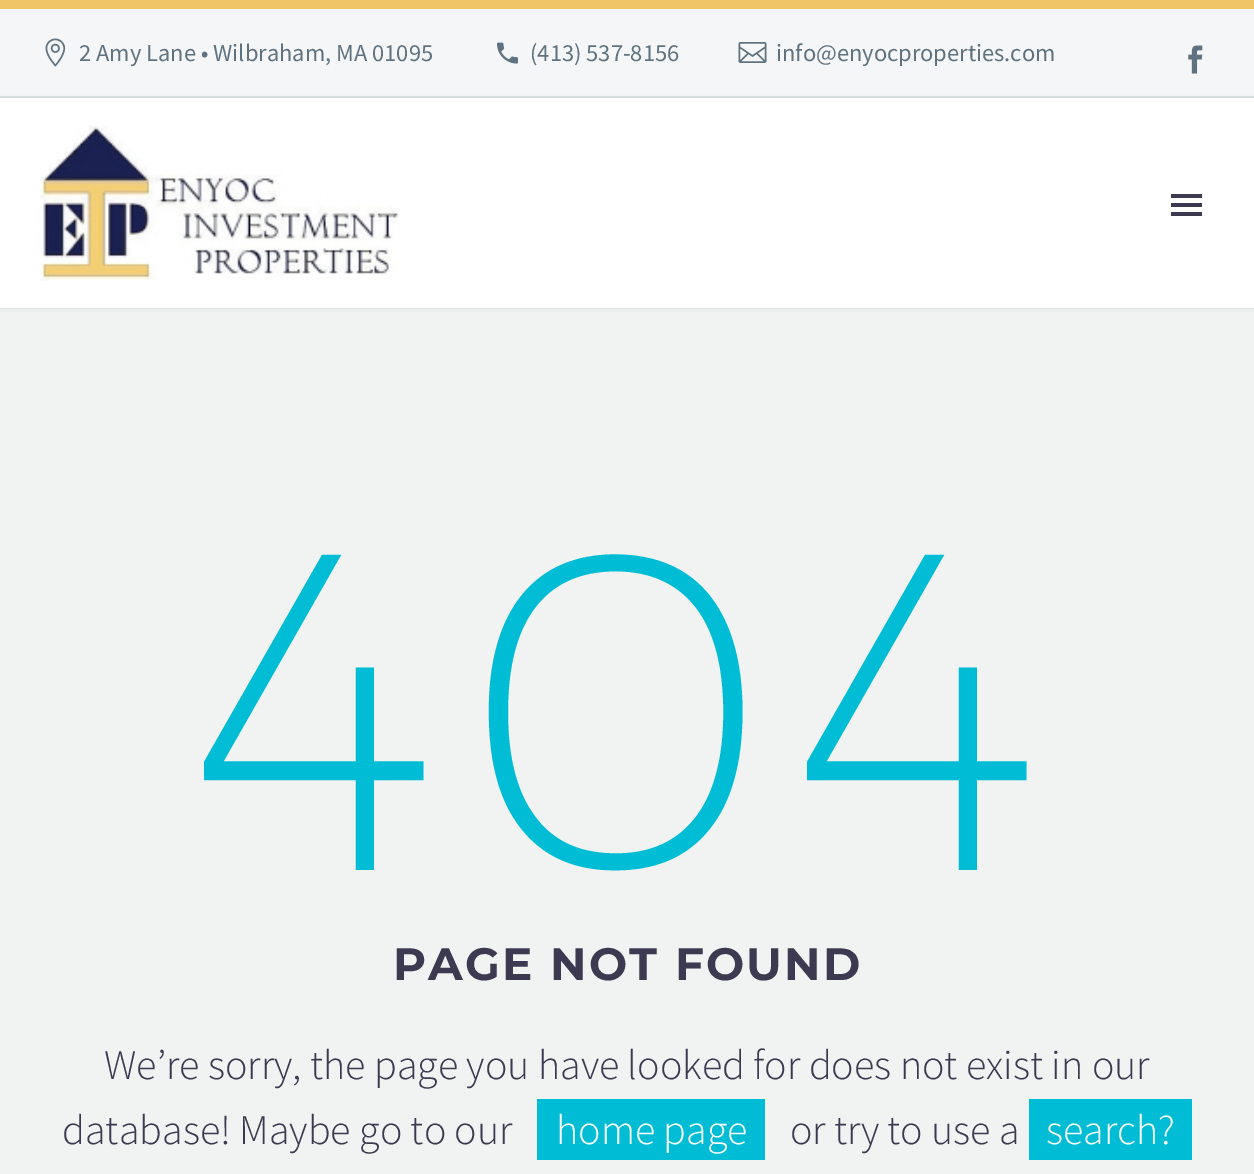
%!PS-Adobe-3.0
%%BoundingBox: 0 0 1254 1174
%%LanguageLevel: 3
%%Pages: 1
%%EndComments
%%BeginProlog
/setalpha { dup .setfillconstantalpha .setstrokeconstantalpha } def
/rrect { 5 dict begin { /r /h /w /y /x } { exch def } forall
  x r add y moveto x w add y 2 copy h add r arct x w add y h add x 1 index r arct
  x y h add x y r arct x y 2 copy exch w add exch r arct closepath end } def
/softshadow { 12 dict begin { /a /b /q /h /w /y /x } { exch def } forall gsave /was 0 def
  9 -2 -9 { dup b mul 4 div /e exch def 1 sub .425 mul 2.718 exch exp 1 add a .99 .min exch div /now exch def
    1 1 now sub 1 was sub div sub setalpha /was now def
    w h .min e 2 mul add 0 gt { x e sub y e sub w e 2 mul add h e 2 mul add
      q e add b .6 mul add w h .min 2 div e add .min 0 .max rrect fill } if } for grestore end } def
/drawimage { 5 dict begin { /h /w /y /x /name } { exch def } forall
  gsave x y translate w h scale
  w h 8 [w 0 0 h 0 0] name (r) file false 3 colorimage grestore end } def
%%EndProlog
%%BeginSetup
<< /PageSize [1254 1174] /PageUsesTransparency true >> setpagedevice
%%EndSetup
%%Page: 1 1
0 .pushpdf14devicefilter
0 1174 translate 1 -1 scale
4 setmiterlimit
0.957 0.965 0.969 setrgbcolor
0 0 1254 1174 rectfill
0.937 0.773 0.404 setrgbcolor
0 0 1254 9 rectfill
0.875 0.898 0.91 setrgbcolor
0 96 1254 2 rectfill
(images/1.raw) 45 38 21 29 drawimage
(images/2.raw) 497 42 21 22 drawimage
(images/3.raw) 738 42 29 21 drawimage
(images/4.raw) 1188 45 15 29 drawimage
0.941 0.953 0.949 setrgbcolor
0 308 1254 866 rectfill
0.22 0.271 0.329 setrgbcolor
0 98 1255 210 0 2 0.2 softshadow
1 setgray
0 98 1254 210 rectfill
(images/5.raw) 40 125 360 156 drawimage
0.235 0.224 0.314 setrgbcolor
1171 194 31 4 rectfill
1171 203 31 4 rectfill
1171 212 31 4 rectfill
0 0.737 0.831 setrgbcolor
537 1099 228 61 rectfill
1029 1099 163 61 rectfill
/SourceSansPro-Regular [24.5 0 0 -24.5 0 0] selectfont
0.373 0.447 0.498 setrgbcolor
79 61 moveto (2 Amy Lane • Wilbraham, MA 01095) show
530 61 moveto (\(413\) 537-8156) show
776 61 moveto (info@enyocproperties.com) show
/Montserrat-ExtraLight [453 0 0 -453 0 0] selectfont
0 0.737 0.831 setrgbcolor
189 870 moveto 22.5 0 (404) ashow
/Montserrat-Bold [45.25 0 0 -45.25 0 0] selectfont
0.235 0.224 0.314 setrgbcolor
393 980 moveto 2.25 0 (PAGE NOT FOUND) ashow
/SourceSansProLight-Light [42 0 0 -42 0 0] selectfont
104 1079 moveto (We’re sorry, the page you have looked for does not exist in our) show
62 1144 moveto (database! Maybe go to our) show
1 setgray
556 1144 moveto (home page) show
0.235 0.224 0.314 setrgbcolor
790 1144 moveto (or try to use a) show
1 setgray
1046 1144 moveto (search?) show
.poppdf14devicefilter showpage
%%EOF
